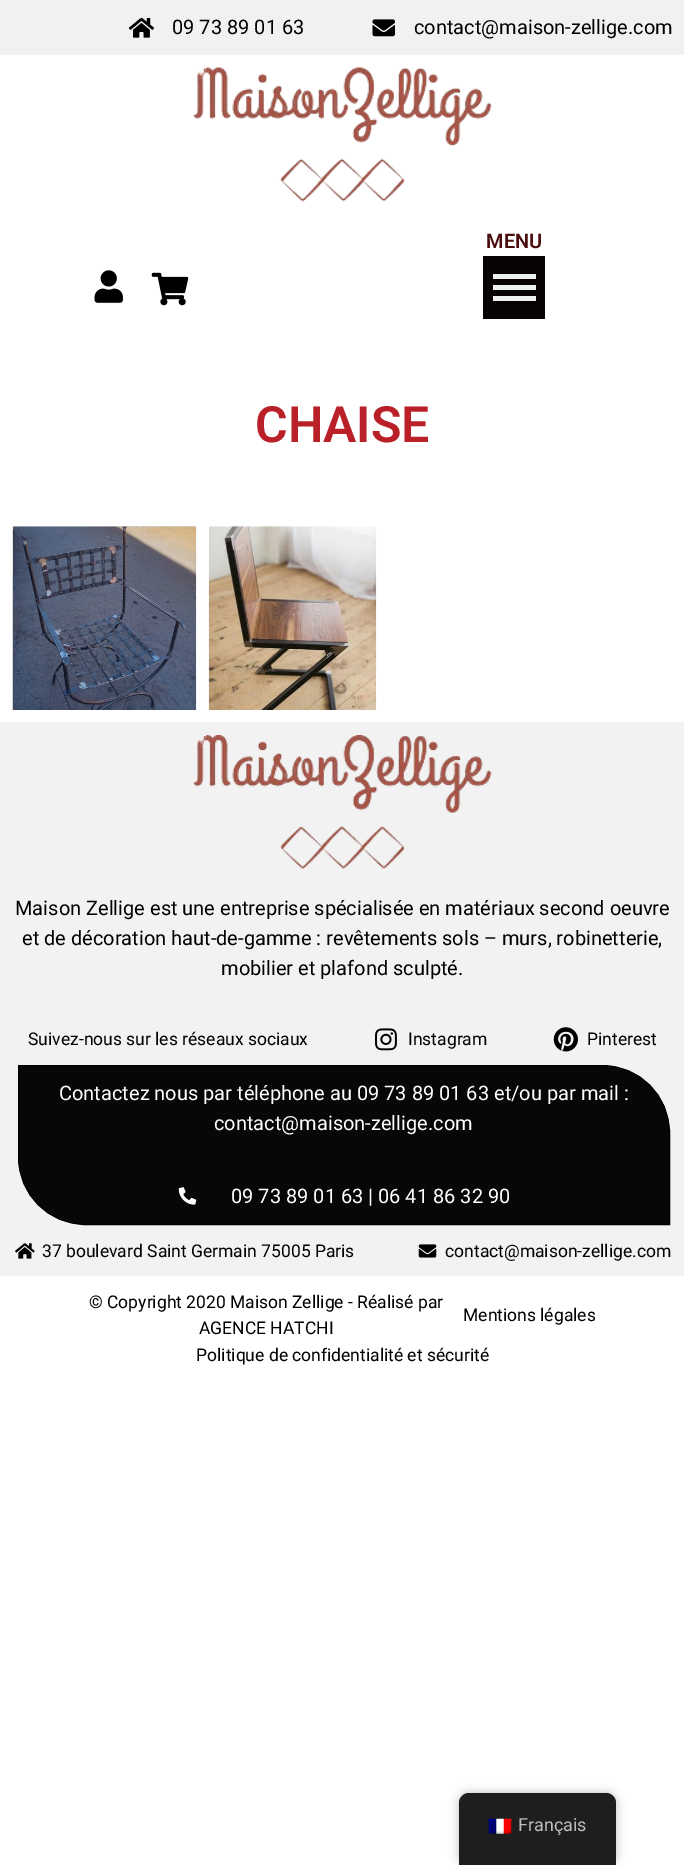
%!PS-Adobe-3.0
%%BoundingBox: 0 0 684 1865
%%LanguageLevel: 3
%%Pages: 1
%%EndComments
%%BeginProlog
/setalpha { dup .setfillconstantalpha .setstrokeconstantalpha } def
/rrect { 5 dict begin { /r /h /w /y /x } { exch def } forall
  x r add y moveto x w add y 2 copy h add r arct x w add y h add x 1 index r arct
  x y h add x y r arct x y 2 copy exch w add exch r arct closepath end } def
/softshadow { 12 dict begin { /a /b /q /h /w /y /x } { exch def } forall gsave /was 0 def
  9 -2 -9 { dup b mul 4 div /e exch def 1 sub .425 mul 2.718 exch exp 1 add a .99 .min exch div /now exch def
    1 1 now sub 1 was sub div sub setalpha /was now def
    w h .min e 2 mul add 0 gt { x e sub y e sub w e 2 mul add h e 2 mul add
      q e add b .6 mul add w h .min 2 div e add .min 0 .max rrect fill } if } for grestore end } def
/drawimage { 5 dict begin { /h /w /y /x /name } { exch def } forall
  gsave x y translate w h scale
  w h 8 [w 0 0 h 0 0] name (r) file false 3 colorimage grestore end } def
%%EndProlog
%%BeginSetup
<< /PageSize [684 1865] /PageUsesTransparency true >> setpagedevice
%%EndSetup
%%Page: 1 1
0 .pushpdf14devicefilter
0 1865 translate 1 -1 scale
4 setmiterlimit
1 setgray
0 0 684 1865 rectfill
0.949 0.945 0.945 setrgbcolor
0 0 684 55 rectfill
(images/1.raw) 128 18 26 20 drawimage
(images/2.raw) 372 19 23 18 drawimage
(images/3.raw) 193 67 299 135 drawimage
0.027 0.012 0.012 setrgbcolor
483 256 62 63 rectfill
0.925 0.941 0.945 setrgbcolor
493 274 43 5 rectfill
493 285 43 5 rectfill
493 296 43 5 rectfill
(images/4.raw) 94 270 29 33 drawimage
(images/5.raw) 151 272 38 34 drawimage
(images/6.raw) 12 526 185 184 drawimage
(images/7.raw) 208 526 169 184 drawimage
0.949 setgray
0 722 684 554 rectfill
(images/8.raw) 193 735 299 134 drawimage
(images/9.raw) 375 1028 22 23 drawimage
(images/10.raw) 553 1027 25 25 drawimage
0.027 setgray
newpath 18.5 1065.5 moveto 602 1065.5 lineto 639.5 1065.5 669.5 1095.5 669.5 1133 curveto 669.5 1224.5 lineto 86 1224.5 lineto 48.5 1224.5 18.5 1194.5 18.5 1157 curveto closepath gsave fill grestore
0 setgray
stroke
(images/11.raw) 178 1187 19 18 drawimage
(images/12.raw) 15 1243 20 16 drawimage
(images/13.raw) 418 1244 19 14 drawimage
459 1793 157 72 10 5 0.25 softshadow
0.118 setgray
newpath 469 1793 moveto 606 1793 lineto 611.5 1793 616 1797.5 616 1803 curveto 616 1865 lineto 459 1865 lineto 459 1803 lineto 459 1797.5 463.5 1793 469 1793 curveto closepath fill
(images/14.raw) 488 1818 24 16 drawimage
/Roboto-Regular [20 0 0 -20 0 0] selectfont
0 setgray
172 34 moveto (09 73 89 01 63) show
414 34 moveto (contact@maison-zellige.com) show
/Roboto-SemiBold [20 0 0 -20 0 0] selectfont
0.294 0.051 0.051 setrgbcolor
486 248 moveto (MENU) show
/Roboto-SemiBold [50 0 0 -50 0 0] selectfont
0.725 0.125 0.157 setrgbcolor
255 442 moveto (CHAISE) show
/Roboto-Regular [20 0 0 -20 0 0] selectfont
0 setgray
15 915 moveto (Maison Zellige est une entreprise spécialisée en matériaux second oeuvre) show
22 945 moveto (et de décoration haut-de-gamme : revêtements sols – murs, robinetterie,) show
221 975 moveto (mobilier et plafond sculpté.) show
/Roboto-Regular [17.5 0 0 -17.5 0 0] selectfont
28 1045 moveto (Suivez-nous sur les réseaux sociaux) show
408 1045 moveto (Instagram) show
587 1045 moveto (Pinterest) show
/Roboto-Regular [20 0 0 -20 0 0] selectfont
1 setgray
59 1100 moveto (Contactez nous par téléphone au 09 73 89 01 63 et/ou par mail :) show
214 1130 moveto (contact@maison-zellige.com) show
231 1203 moveto (09 73 89 01 63 | 06 41 86 32 90) show
/Roboto-Regular [17.5 0 0 -17.5 0 0] selectfont
0 setgray
42 1257 moveto (37 boulevard Saint Germain 75005 Paris) show
445 1257 moveto (contact@maison-zellige.com) show
89 1308 moveto (© Copyright 2020 Maison Zellige - Réalisé par) show
199 1334 moveto (AGENCE HATCHI) show
463 1321 moveto (Mentions légales) show
196 1361 moveto (Politique de confidentialité et sécurité) show
/Roboto-Regular [18 0 0 -18 0 0] selectfont
0.741 setgray
518 1831 moveto (Français) show
.poppdf14devicefilter showpage
%%EOF
